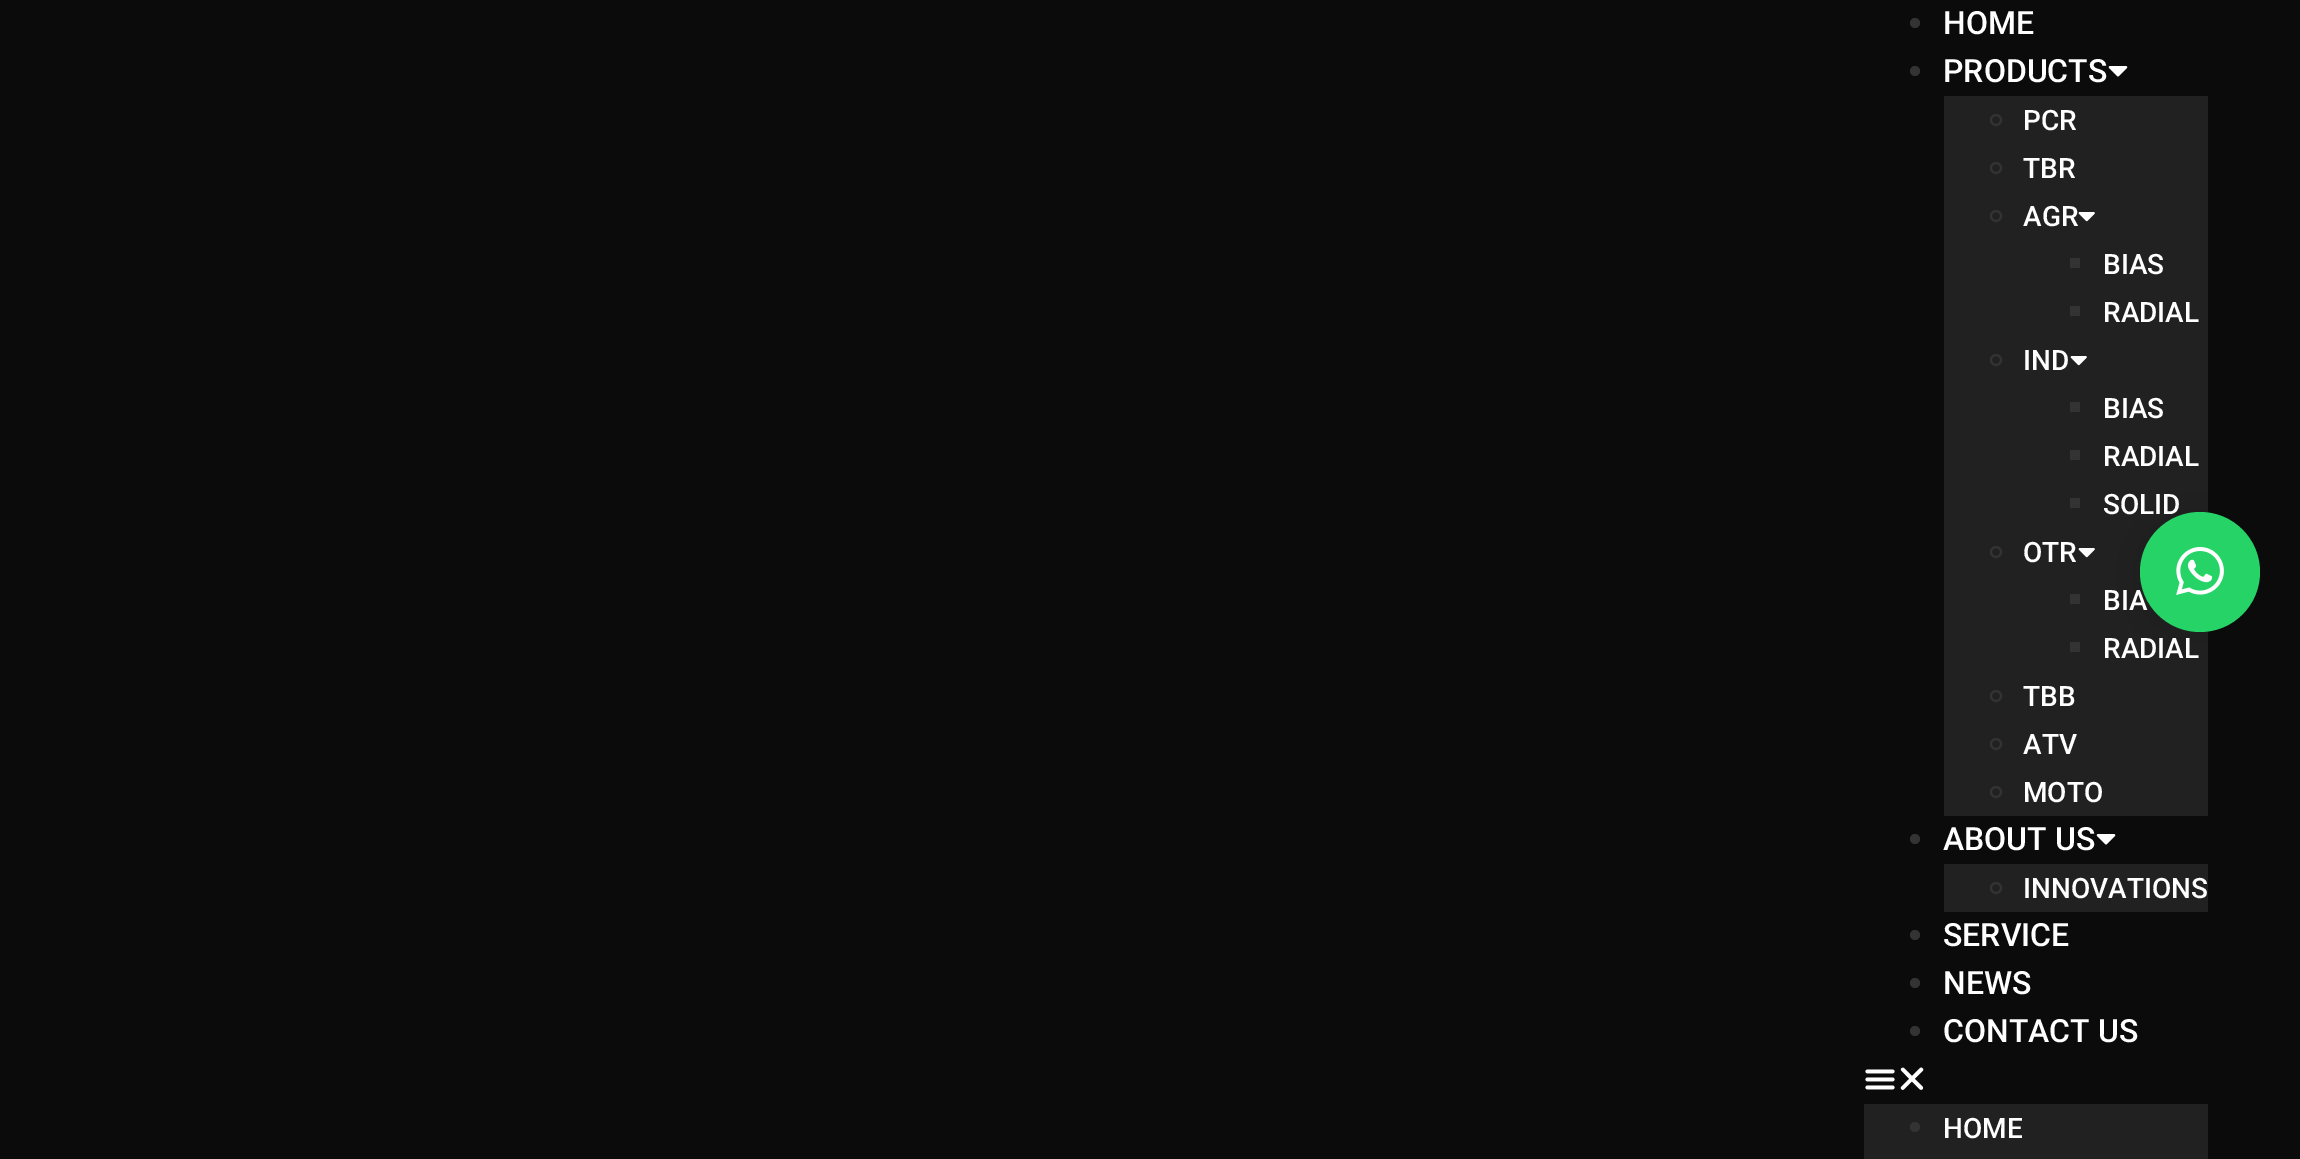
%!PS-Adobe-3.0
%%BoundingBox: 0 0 2300 1159
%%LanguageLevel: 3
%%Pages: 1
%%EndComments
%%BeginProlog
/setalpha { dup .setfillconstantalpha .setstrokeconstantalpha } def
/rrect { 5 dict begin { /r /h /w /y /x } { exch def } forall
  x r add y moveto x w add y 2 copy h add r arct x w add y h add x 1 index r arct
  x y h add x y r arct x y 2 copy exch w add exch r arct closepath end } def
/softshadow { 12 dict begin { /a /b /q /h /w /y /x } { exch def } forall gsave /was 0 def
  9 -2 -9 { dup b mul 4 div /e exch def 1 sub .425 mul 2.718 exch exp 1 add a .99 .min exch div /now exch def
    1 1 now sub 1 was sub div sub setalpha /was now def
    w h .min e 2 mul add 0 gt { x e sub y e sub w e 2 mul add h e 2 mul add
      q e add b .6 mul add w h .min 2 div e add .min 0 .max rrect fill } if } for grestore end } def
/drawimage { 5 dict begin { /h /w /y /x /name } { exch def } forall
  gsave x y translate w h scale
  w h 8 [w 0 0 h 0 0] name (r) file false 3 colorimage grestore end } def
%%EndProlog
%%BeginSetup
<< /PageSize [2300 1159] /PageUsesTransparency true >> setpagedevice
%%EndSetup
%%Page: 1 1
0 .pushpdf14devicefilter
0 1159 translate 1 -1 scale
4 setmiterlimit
0.043 setgray
0 0 2300 1159 rectfill
0.2 setgray
newpath 1915 23 5 0 360 arc closepath fill
newpath 1915 71 5 0 360 arc closepath fill
(images/1.raw) 2108 66 20 11 drawimage
0.129 0.129 0.133 setrgbcolor
1944 96 264 720 rectfill
0.2 setgray
2 setlinewidth
newpath 1996 120 5 0 360 arc closepath stroke
newpath 1996 168 5 0 360 arc closepath stroke
newpath 1996 216 5 0 360 arc closepath stroke
(images/2.raw) 2078 212 17 10 drawimage
2070 258 10 10 rectfill
2070 306 10 10 rectfill
newpath 1996 360 5 0 360 arc closepath stroke
(images/2.raw) 2070 356 17 10 drawimage
2070 402 10 10 rectfill
2070 450 10 10 rectfill
2070 498 10 10 rectfill
newpath 1996 552 5 0 360 arc closepath stroke
(images/2.raw) 2078 548 17 10 drawimage
2070 594 10 10 rectfill
2070 642 10 10 rectfill
newpath 1996 696 5 0 360 arc closepath stroke
newpath 1996 744 5 0 360 arc closepath stroke
newpath 1996 792 5 0 360 arc closepath stroke
newpath 1915 839 5 0 360 arc closepath fill
(images/1.raw) 2096 834 20 11 drawimage
0.129 0.129 0.133 setrgbcolor
1944 864 264 48 rectfill
0.2 setgray
newpath 1996 888 5 0 360 arc closepath stroke
newpath 1915 935 5 0 360 arc closepath fill
newpath 1915 983 5 0 360 arc closepath fill
newpath 1915 1031 5 0 360 arc closepath fill
(images/3.raw) 1865 1069 30 21 drawimage
(images/4.raw) 1900 1067 24 23 drawimage
0.129 0.129 0.133 setrgbcolor
1864 1104 344 55 rectfill
0.2 setgray
newpath 1915 1127 5 0 360 arc closepath fill
0 setgray
2140 516 120 120 60 32 0.16 softshadow
/Roboto-Medium [32 0 0 -32 0 0] selectfont
1 setgray
1943 34 moveto (HOME) show
1943 82 moveto (PRODUCTS) show
/Roboto-Medium [28 0 0 -28 0 0] selectfont
2023 130 moveto (PCR) show
2023 178 moveto (TBR) show
2023 226 moveto (AGR) show
2103 274 moveto (BIAS) show
2103 322 moveto (RADIAL) show
2023 370 moveto (IND) show
2103 418 moveto (BIAS) show
2103 466 moveto (RADIAL) show
2103 514 moveto (SOLID) show
2023 562 moveto (OTR) show
2103 610 moveto (BIA) show
2103 658 moveto (RADIAL) show
2023 706 moveto (TBB) show
2023 754 moveto (ATV) show
2023 802 moveto (MOTO) show
/Roboto-Medium [32 0 0 -32 0 0] selectfont
1943 850 moveto (ABOUT US) show
/Roboto-Medium [28 0 0 -28 0 0] selectfont
2023 898 moveto (INNOVATIONS) show
/Roboto-Medium [32 0 0 -32 0 0] selectfont
1943 946 moveto (SERVICE) show
1943 994 moveto (NEWS) show
1943 1042 moveto (CONTACT US) show
/Roboto-Medium [28 0 0 -28 0 0] selectfont
1943 1138 moveto (HOME) show
0.145 0.827 0.4 setrgbcolor
newpath 2200 572 60 0 360 arc closepath fill
(images/5.raw) 2176 547 48 48 drawimage
.poppdf14devicefilter showpage
%%EOF
